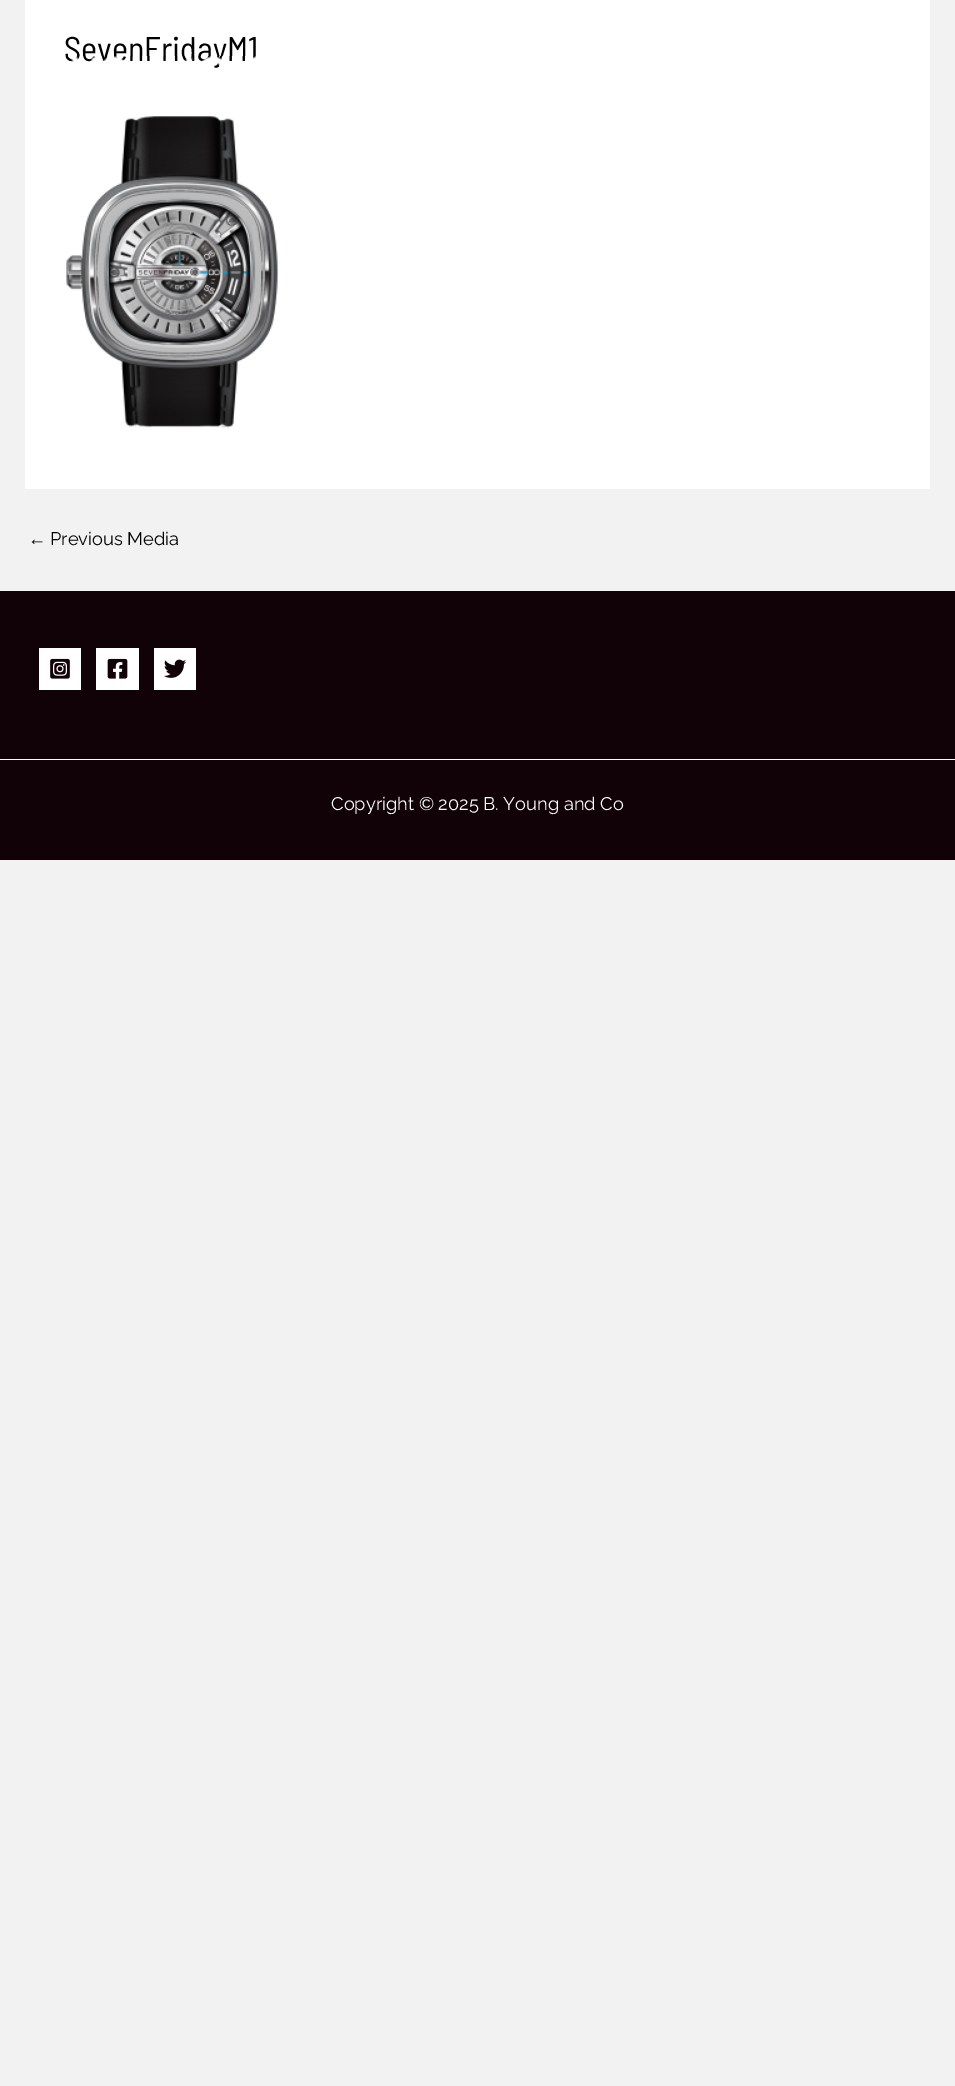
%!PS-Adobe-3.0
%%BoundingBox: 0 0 955 2086
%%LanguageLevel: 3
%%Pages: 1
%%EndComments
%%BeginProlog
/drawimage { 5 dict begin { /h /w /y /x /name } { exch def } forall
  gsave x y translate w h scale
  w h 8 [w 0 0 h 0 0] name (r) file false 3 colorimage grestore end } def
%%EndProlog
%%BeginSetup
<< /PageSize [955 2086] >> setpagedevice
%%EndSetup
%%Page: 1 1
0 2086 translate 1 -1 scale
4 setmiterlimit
0.949 setgray
0 0 955 2086 rectfill
1 setgray
25 0 905 489 rectfill
(images/1.raw) 66 116 212 312 drawimage
0.067 0.008 0.027 setrgbcolor
0 591 955 269 rectfill
1 setgray
39 648 42 42 rectfill
(images/3.raw) 50 658 20 21 drawimage
96 648 43 42 rectfill
(images/4.raw) 107 658 21 21 drawimage
154 648 42 42 rectfill
(images/5.raw) 164 659 22 19 drawimage
0 759 955 1 rectfill
/BarlowSemiCondensed-Regular [34.25 0 0 -34.25 0 0] selectfont
0 setgray
64 61 moveto (SevenFridayM1) show
/LiberationSans-Regular [18.25 0 0 -18.25 0 0] selectfont
28 545 moveto (←) show
/Raleway-Thin [18.25 0 0 -18.25 0 0] selectfont
50 545 moveto (Previous Media) show
(images/2.raw) 70 56 186 10 drawimage
1 setgray
331 810 moveto (Copyright © 2025 B. Young and Co) show
showpage
%%EOF
